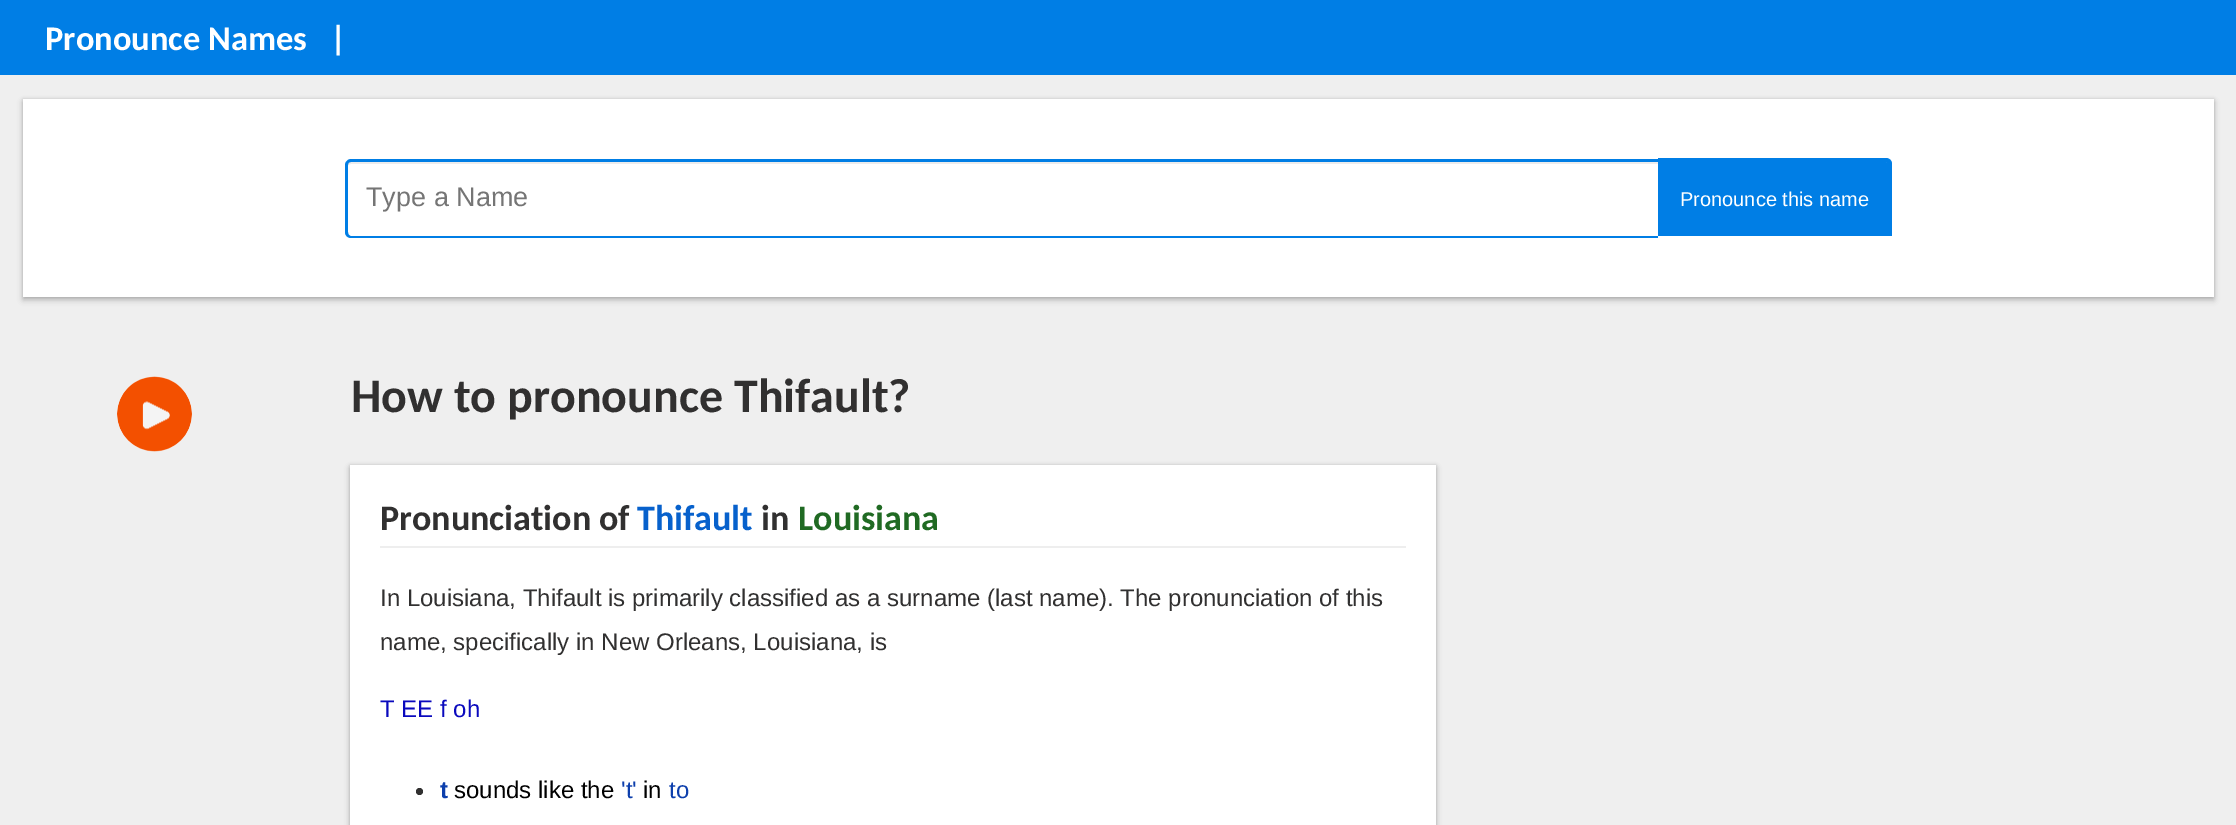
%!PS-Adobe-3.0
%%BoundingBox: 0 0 2236 825
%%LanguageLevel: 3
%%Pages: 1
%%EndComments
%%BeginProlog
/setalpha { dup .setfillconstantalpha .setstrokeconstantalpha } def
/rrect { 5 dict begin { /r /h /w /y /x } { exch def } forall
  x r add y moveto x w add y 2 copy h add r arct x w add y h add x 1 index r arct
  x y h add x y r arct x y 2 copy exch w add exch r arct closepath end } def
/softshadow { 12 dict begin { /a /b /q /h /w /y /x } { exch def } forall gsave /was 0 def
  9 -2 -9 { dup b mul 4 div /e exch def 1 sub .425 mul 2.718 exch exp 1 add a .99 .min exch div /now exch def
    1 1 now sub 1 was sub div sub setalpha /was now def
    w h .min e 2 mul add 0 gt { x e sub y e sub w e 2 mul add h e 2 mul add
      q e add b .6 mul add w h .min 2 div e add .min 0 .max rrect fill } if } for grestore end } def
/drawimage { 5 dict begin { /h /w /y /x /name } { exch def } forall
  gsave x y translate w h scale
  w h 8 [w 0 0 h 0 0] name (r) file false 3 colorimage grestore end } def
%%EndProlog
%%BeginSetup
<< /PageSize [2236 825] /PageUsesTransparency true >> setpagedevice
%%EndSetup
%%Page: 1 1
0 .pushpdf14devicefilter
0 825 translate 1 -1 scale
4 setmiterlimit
0.937 setgray
0 0 2236 825 rectfill
0 0.494 0.898 setrgbcolor
0 0 2236 75 rectfill
0 setgray
23 102 2191 198 0 3 0.24 softshadow
23 99 2191 198 0 1.5 0.12 softshadow
1 setgray
23 99 2191 198 rectfill
0.925 setgray
newpath 351 164 moveto 1658 164 lineto 1658 162 lineto 351 162 lineto 349 162 348 164 348 166 curveto 348 165 349 164 351 164 curveto closepath fill
0 0.494 0.898 setrgbcolor
newpath 351 159 moveto 1658 159 lineto 1658 238 lineto 351 238 lineto 348 238 345 236 345 232 curveto 345 165 lineto 345 162 348 159 351 159 curveto closepath 351 162 moveto 1658 162 lineto 1658 236 lineto 351 236 lineto 349 236 348 234 348 232 curveto 348 165 lineto 348 163 349 162 351 162 curveto closepath eofill
newpath 1662 162 moveto 1885.5 162 lineto 1886.5 162 1887 162.5 1887 163.5 curveto 1887 236 lineto 1662 236 lineto closepath fill
newpath 1658 158 moveto 1886 158 lineto 1889 158 1892 160 1892 164 curveto 1892 236 lineto 1658 236 lineto closepath 1662 162 moveto 1886 162 lineto 1886 162 1887 163 1887 164 curveto 1887 236 lineto 1662 236 lineto closepath eofill
(images/1.raw) 117 376 75 76 drawimage
0 setgray
350 468 1086 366 0 3 0.24 softshadow
350 465 1086 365 0 1.5 0.12 softshadow
1 setgray
350 465 1086 360 rectfill
0.933 setgray
380 546 1026 2 rectfill
0.192 0.188 0.188 setrgbcolor
newpath 419.5 791.5 3.5 0 360 arc closepath fill
/Carlito-Bold [34.5 0 0 -34.5 0 0] selectfont
1 setgray
45 50 moveto (Pronounce Names) show
330 50 moveto (|) show
/LiberationSans-Regular [27 0 0 -27 0 0] selectfont
0.459 setgray
366 206 moveto (Type a Name) show
/LiberationSans-Regular [20 0 0 -20 0 0] selectfont
1 setgray
1680 206 moveto (Pronounce this name) show
/Carlito-Bold [48 0 0 -48 0 0] selectfont
0.192 0.188 0.188 setrgbcolor
351 412 moveto (How to pronounce Thifault?) show
/Carlito-Bold [36 0 0 -36 0 0] selectfont
380 530 moveto (Pronunciation of) show
0.027 0.38 0.8 setrgbcolor
637 530 moveto (Thifault) show
0.192 0.188 0.188 setrgbcolor
761 530 moveto (in) show
0.125 0.416 0.137 setrgbcolor
798 530 moveto (Louisiana) show
/LiberationSans-Regular [24 0 0 -24 0 0] selectfont
0.192 0.188 0.188 setrgbcolor
380 606 moveto (In Louisiana, Thifault is primarily classified as a surname \(last name\). The pronunciation of this) show
380 650 moveto (name, specifically in New Orleans, Louisiana, is) show
0.039 0.035 0.741 setrgbcolor
380 717 moveto (T EE f oh) show
/LiberationSans-Bold [24 0 0 -24 0 0] selectfont
0.051 0.247 0.675 setrgbcolor
440 798 moveto (t) show
/LiberationSans-Regular [24 0 0 -24 0 0] selectfont
0 setgray
454 798 moveto (sounds like the) show
0.051 0.247 0.675 setrgbcolor
621 798 moveto ('t') show
0 setgray
643 798 moveto (in) show
0.051 0.247 0.675 setrgbcolor
669 798 moveto (to) show
.poppdf14devicefilter showpage
%%EOF
